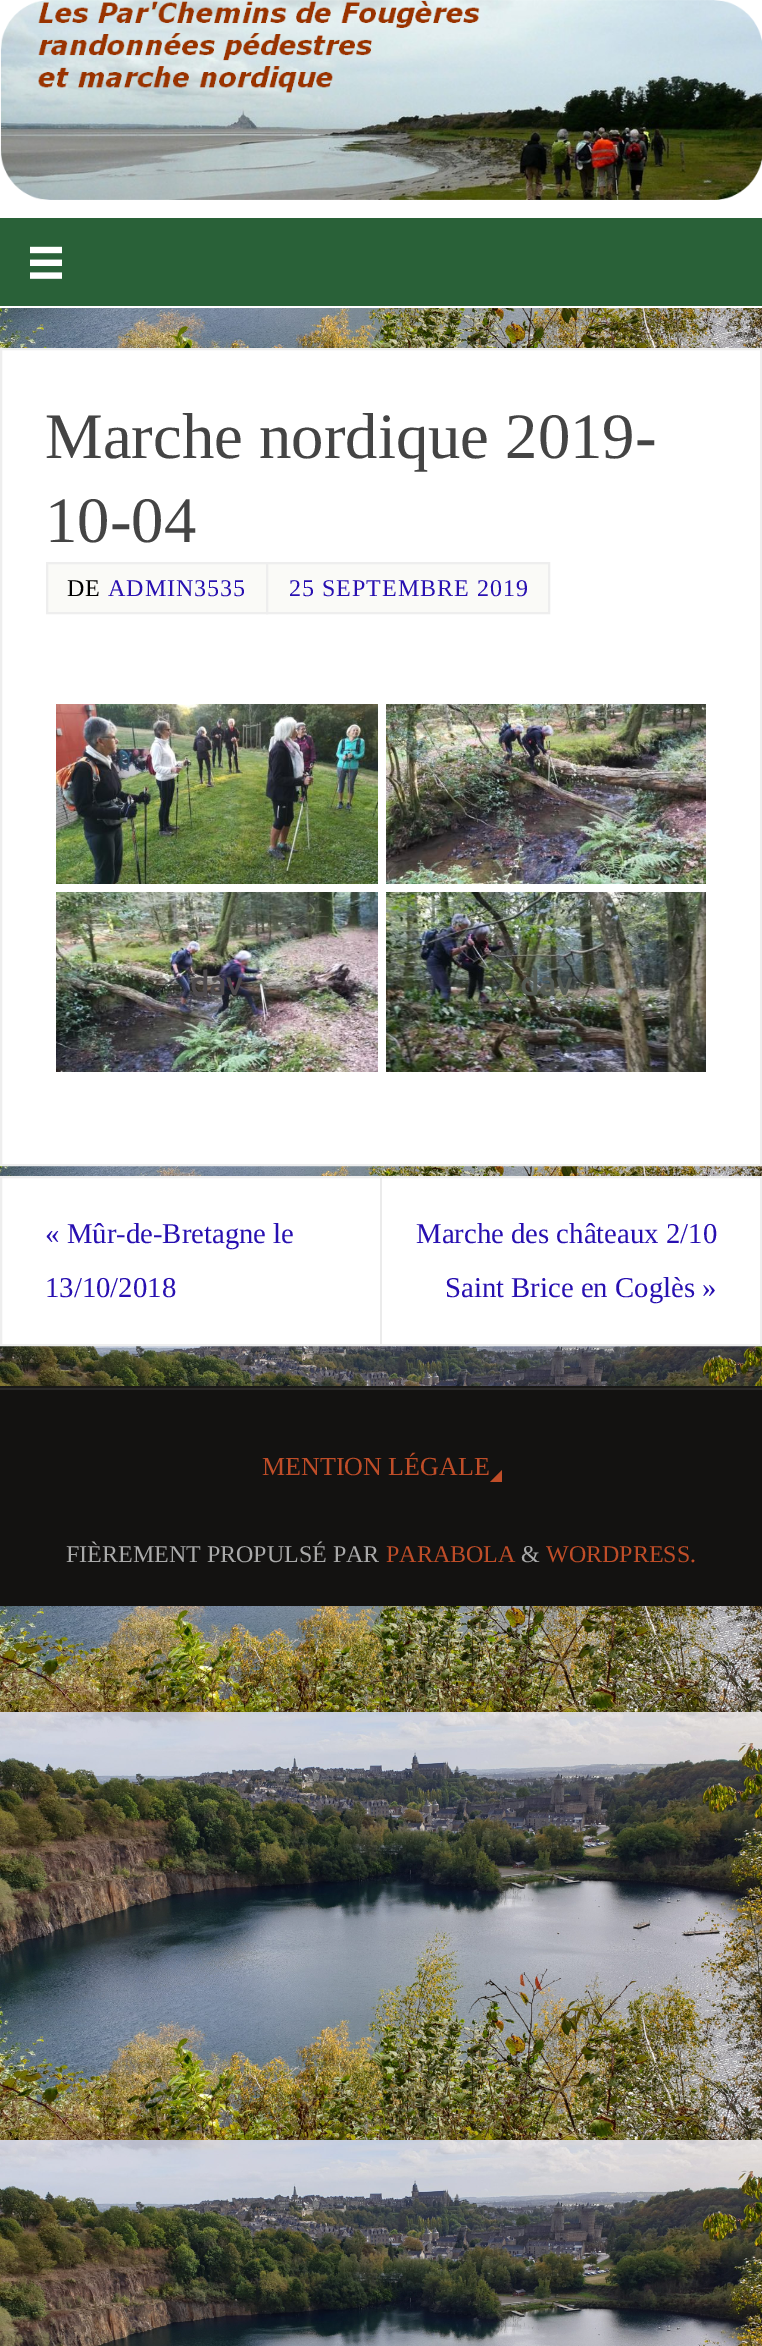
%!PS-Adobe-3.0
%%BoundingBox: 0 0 762 2346
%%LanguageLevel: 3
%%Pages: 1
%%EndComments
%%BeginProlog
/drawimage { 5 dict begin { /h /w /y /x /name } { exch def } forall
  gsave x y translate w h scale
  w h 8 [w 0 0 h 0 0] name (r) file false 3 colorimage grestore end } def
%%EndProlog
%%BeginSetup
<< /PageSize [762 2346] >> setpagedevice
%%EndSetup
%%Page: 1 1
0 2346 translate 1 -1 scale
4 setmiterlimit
1 setgray
0 0 762 2346 rectfill
(images/1.raw) 0 308 762 2038 drawimage
(images/2.raw) 0 0 762 200 drawimage
0.161 0.38 0.22 setrgbcolor
0 218 762 88 rectfill
(images/3.raw) 30 246 32 33 drawimage
1 setgray
newpath 1 349 moveto 761 349 lineto 761 1165 lineto 1 1165 lineto closepath gsave fill grestore
0.933 setgray
2 setlinewidth
stroke
0.98 0.98 0.969 setrgbcolor
newpath 47 563 moveto 267 563 lineto 267 613 lineto 47 613 lineto closepath gsave fill grestore
0.933 setgray
stroke
0.98 0.98 0.969 setrgbcolor
newpath 267 563 moveto 549 563 lineto 549 613 lineto 267 613 lineto closepath gsave fill grestore
0.933 setgray
stroke
(images/4.raw) 56 704 322 180 drawimage
(images/5.raw) 386 704 320 180 drawimage
(images/6.raw) 56 892 322 180 drawimage
(images/7.raw) 386 892 320 180 drawimage
1 setgray
newpath 1 1177 moveto 761 1177 lineto 761 1345 lineto 1 1345 lineto closepath gsave fill grestore
0.933 setgray
stroke
0.922 setgray
380 1178 2 166 rectfill
0.102 0.098 0.09 setrgbcolor
0 1386 762 2 rectfill
0.075 0.071 0.067 setrgbcolor
0 1390 762 216 rectfill
0.169 0.165 0.161 setrgbcolor
0 1388 762 2 rectfill
0.749 0.302 0.157 setrgbcolor
newpath 502 1482 moveto 490 1482 lineto 502 1470 lineto closepath fill
/LiberationSerif-Regular [64.75 0 0 -64.75 0 0] selectfont
0.267 setgray
45 458 moveto (Marche nordique 2019-) show
45 542 moveto (10-04) show
/LiberationSerif-Regular [24 0 0 -24 0 0] selectfont
0 setgray
67 596 moveto 1 0 (DE) ashow
0.157 0.063 0.694 setrgbcolor
108 596 moveto 1 0 (ADMIN3535) ashow
289 596 moveto 1 0 (25 SEPTEMBRE 2019) ashow
/Ubuntu-Bold [32 0 0 -32 0 0] selectfont
0.31 0.294 0.306 setrgbcolor
190 995 moveto (dav) show
0.337 0.361 0.337 setrgbcolor
520 995 moveto (dav) show
/LiberationSerif-Regular [28.75 0 0 -28.75 0 0] selectfont
0.157 0.063 0.694 setrgbcolor
45 1243 moveto (« Mûr-de-Bretagne le) show
45 1297 moveto (13/10/2018) show
416 1243 moveto (Marche des châteaux 2/10) show
445 1297 moveto (Saint Brice en Coglès ») show
/LiberationSerif-Regular [26 0 0 -26 0 0] selectfont
0.749 0.302 0.157 setrgbcolor
262 1475 moveto (MENTION LÉGALE) show
/LiberationSerif-Regular [24 0 0 -24 0 0] selectfont
0.667 setgray
66 1562 moveto (FIÈREMENT PROPULSÉ PAR) show
0.749 0.302 0.157 setrgbcolor
386 1562 moveto (PARABOLA) show
0.667 setgray
521 1562 moveto (&) show
0.749 0.302 0.157 setrgbcolor
546 1562 moveto (WORDPRESS.) show
showpage
%%EOF
